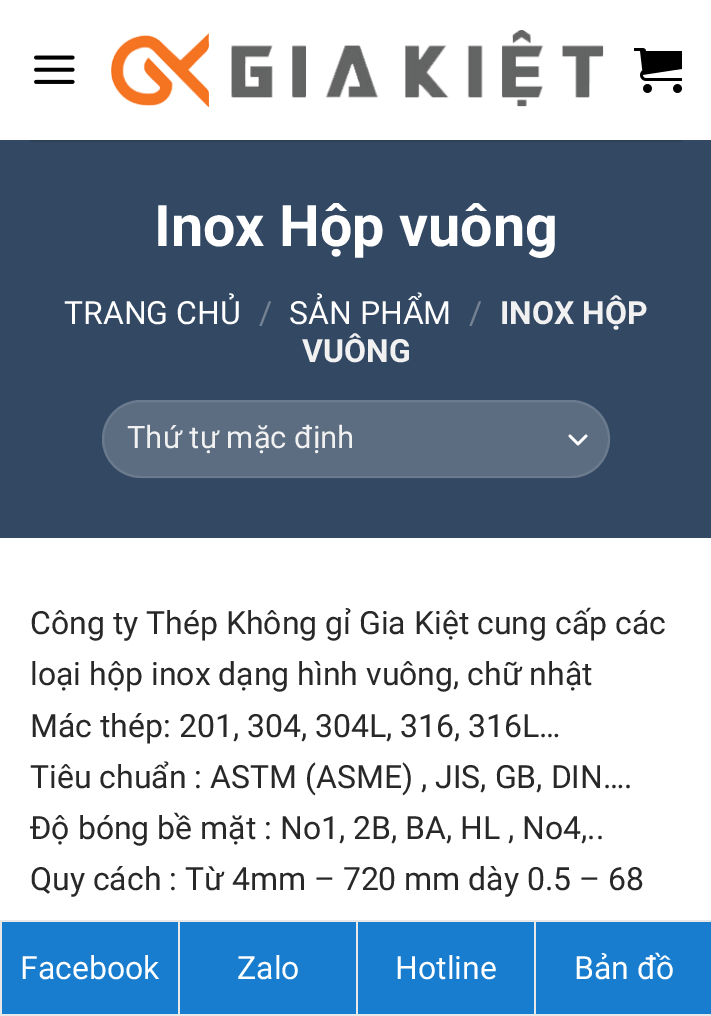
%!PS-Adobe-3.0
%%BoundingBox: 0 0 711 1016
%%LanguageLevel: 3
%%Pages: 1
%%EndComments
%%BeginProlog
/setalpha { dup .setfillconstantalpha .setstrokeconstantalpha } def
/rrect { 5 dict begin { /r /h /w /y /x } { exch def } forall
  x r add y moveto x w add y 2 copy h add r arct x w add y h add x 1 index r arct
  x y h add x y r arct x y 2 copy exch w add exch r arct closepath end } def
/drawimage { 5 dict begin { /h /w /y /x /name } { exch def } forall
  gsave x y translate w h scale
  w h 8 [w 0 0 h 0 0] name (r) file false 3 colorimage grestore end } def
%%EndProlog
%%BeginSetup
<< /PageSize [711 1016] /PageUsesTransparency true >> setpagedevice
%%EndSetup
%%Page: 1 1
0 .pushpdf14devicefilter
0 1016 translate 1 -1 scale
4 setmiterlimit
1 setgray
0 0 711 1016 rectfill
(images/1.raw) 34 55 41 29 drawimage
(images/2.raw) 111 30 493 78 drawimage
(images/3.raw) 634 48 48 45 drawimage
0.2 0.282 0.388 setrgbcolor
0 140 711 398 rectfill
0.18 0.251 0.337 setrgbcolor
30 140 652 2 rectfill
0.361 0.427 0.51 setrgbcolor
102 400 508 78 39 rrect fill
1 setgray
2.7 setlinewidth
1 setlinecap
1 setlinejoin
newpath 570 436 moveto 578 444 lineto 586 436 lineto stroke
0.09 setalpha
2 setlinewidth
0 setlinecap
0 setlinejoin
103 401 506 76 38 rrect stroke
1 setalpha
0.094 0.49 0.808 setrgbcolor
2 922 176 92 rectfill
0.91 setgray
0 920 711 2 rectfill
0 1014 711 2 rectfill
0 920 2 96 rectfill
0.094 0.49 0.808 setrgbcolor
180 922 176 92 rectfill
0.91 setgray
178 920 2 96 rectfill
0.094 0.49 0.808 setrgbcolor
358 922 176 92 rectfill
0.91 setgray
356 920 2 96 rectfill
0.094 0.49 0.808 setrgbcolor
536 922 175 92 rectfill
0.91 setgray
534 920 2 96 rectfill
/Roboto-Bold [57.5 0 0 -57.5 0 0] selectfont
1 setgray
154 246 moveto (Inox Hộp vuông) show
/Roboto-Regular [32 0 0 -32 0 0] selectfont
64 324 moveto (TRANG CHỦ) show
0.463 0.514 0.584 setrgbcolor
259 324 moveto (/) show
1 setgray
289 324 moveto (SẢN PHẨM) show
0.463 0.514 0.584 setrgbcolor
469 324 moveto (/) show
/Roboto-Bold [32 0 0 -32 0 0] selectfont
0.945 setgray
500 324 moveto (INOX HỘP) show
302 362 moveto (VUÔNG) show
/Roboto-Regular [31 0 0 -31 0 0] selectfont
127 448 moveto (Thứ tự mặc định) show
/Roboto-Regular [32 0 0 -32 0 0] selectfont
0.157 setgray
30 634 moveto (Công ty Thép Không gỉ Gia Kiệt cung cấp các) show
30 685 moveto (loại hộp inox dạng hình vuông, chữ nhật) show
30 737 moveto (Mác thép: 201, 304, 304L, 316, 316L…) show
30 788 moveto (Tiêu chuẩn : ASTM \(ASME\) , JIS, GB, DIN….) show
30 839 moveto (Độ bóng bề mặt : No1, 2B, BA, HL , No4,..) show
30 890 moveto (Quy cách : Từ 4mm – 720 mm dày 0.5 – 68) show
1 setgray
20 979 moveto (Facebook) show
237 979 moveto (Zalo) show
395 979 moveto (Hotline) show
574 979 moveto (Bản đồ) show
.poppdf14devicefilter showpage
%%EOF
